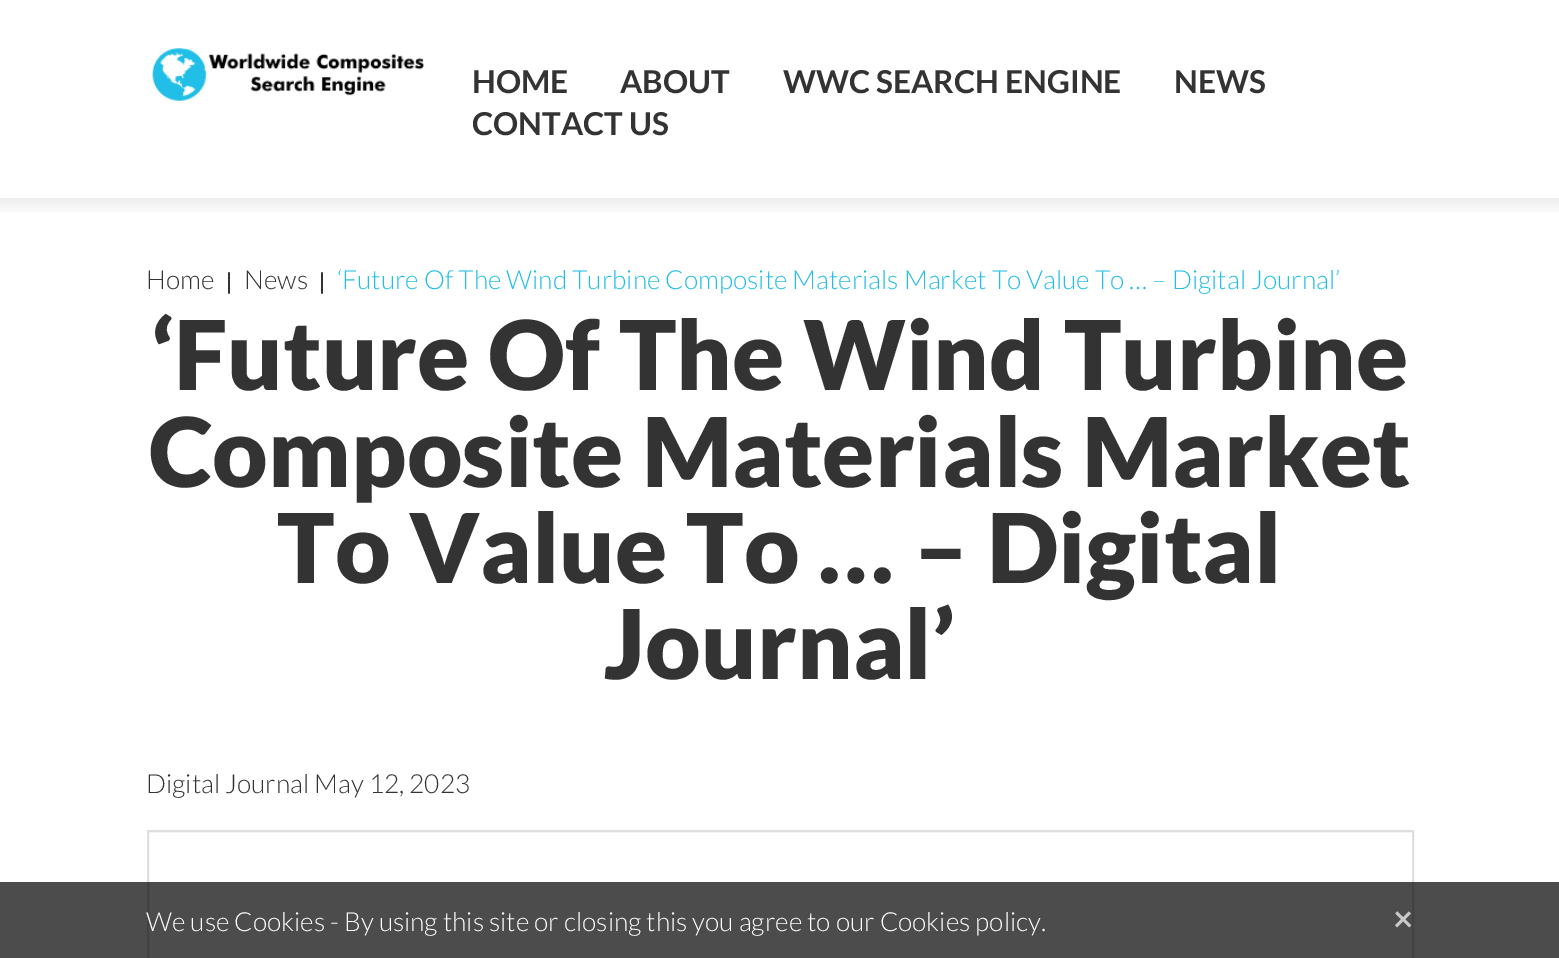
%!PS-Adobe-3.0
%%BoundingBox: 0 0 1559 958
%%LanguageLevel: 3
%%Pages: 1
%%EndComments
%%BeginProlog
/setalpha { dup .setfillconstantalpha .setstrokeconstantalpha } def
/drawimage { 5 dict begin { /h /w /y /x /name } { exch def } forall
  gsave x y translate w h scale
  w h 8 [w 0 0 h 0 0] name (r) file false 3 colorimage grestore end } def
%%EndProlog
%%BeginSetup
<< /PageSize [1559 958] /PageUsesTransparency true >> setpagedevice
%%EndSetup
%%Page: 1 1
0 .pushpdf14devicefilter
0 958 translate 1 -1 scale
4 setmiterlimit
1 setgray
0 0 1559 958 rectfill
(images/1.raw) 152 48 273 53 drawimage
(images/2.raw) 0 198 1559 14 drawimage
0.875 setgray
2 setlinewidth
148 831 1265 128 rectstroke
0.7 setalpha
0 setgray
0 882 1559 76 rectfill
/Lato-Bold [31.5 0 0 -31.5 0 0] selectfont
1 setalpha
0.2 setgray
472 93 moveto (HOME) show
620 93 moveto (ABOUT) show
783 93 moveto (WWC SEARCH ENGINE) show
1174 93 moveto (NEWS) show
472 135 moveto (CONTACT US) show
/Lato-Light [26.25 0 0 -26.25 0 0] selectfont
146 289 moveto (Home) show
/LiberationSans-Regular [23 0 0 -23 0 0] selectfont
226 289 moveto (|) show
/Lato-Light [26.25 0 0 -26.25 0 0] selectfont
244 289 moveto (News) show
/LiberationSans-Regular [23 0 0 -23 0 0] selectfont
319 289 moveto (|) show
/Lato-Light [26.25 0 0 -26.25 0 0] selectfont
0.129 0.745 0.91 setrgbcolor
337 289 moveto (‘Future Of The Wind Turbine Composite Materials Market To Value To … – Digital Journal’) show
/Lato-Black [96.25 0 0 -96.25 0 0] selectfont
0.2 setgray
151 390 moveto (‘Future Of The Wind Turbine) show
149 487 moveto (Composite Materials Market) show
277 583 moveto (To Value To … – Digital) show
604 679 moveto (Journal’) show
/Lato-Light [26.25 0 0 -26.25 0 0] selectfont
146 793 moveto (Digital Journal May 12, 2023) show
1 setgray
146 931 moveto (We use Cookies - By using this site or closing this you agree to our Cookies policy.) show
/Lato-Bold [35 0 0 -35 0 0] selectfont
0.788 setgray
1393 931 moveto (×) show
.poppdf14devicefilter showpage
%%EOF
